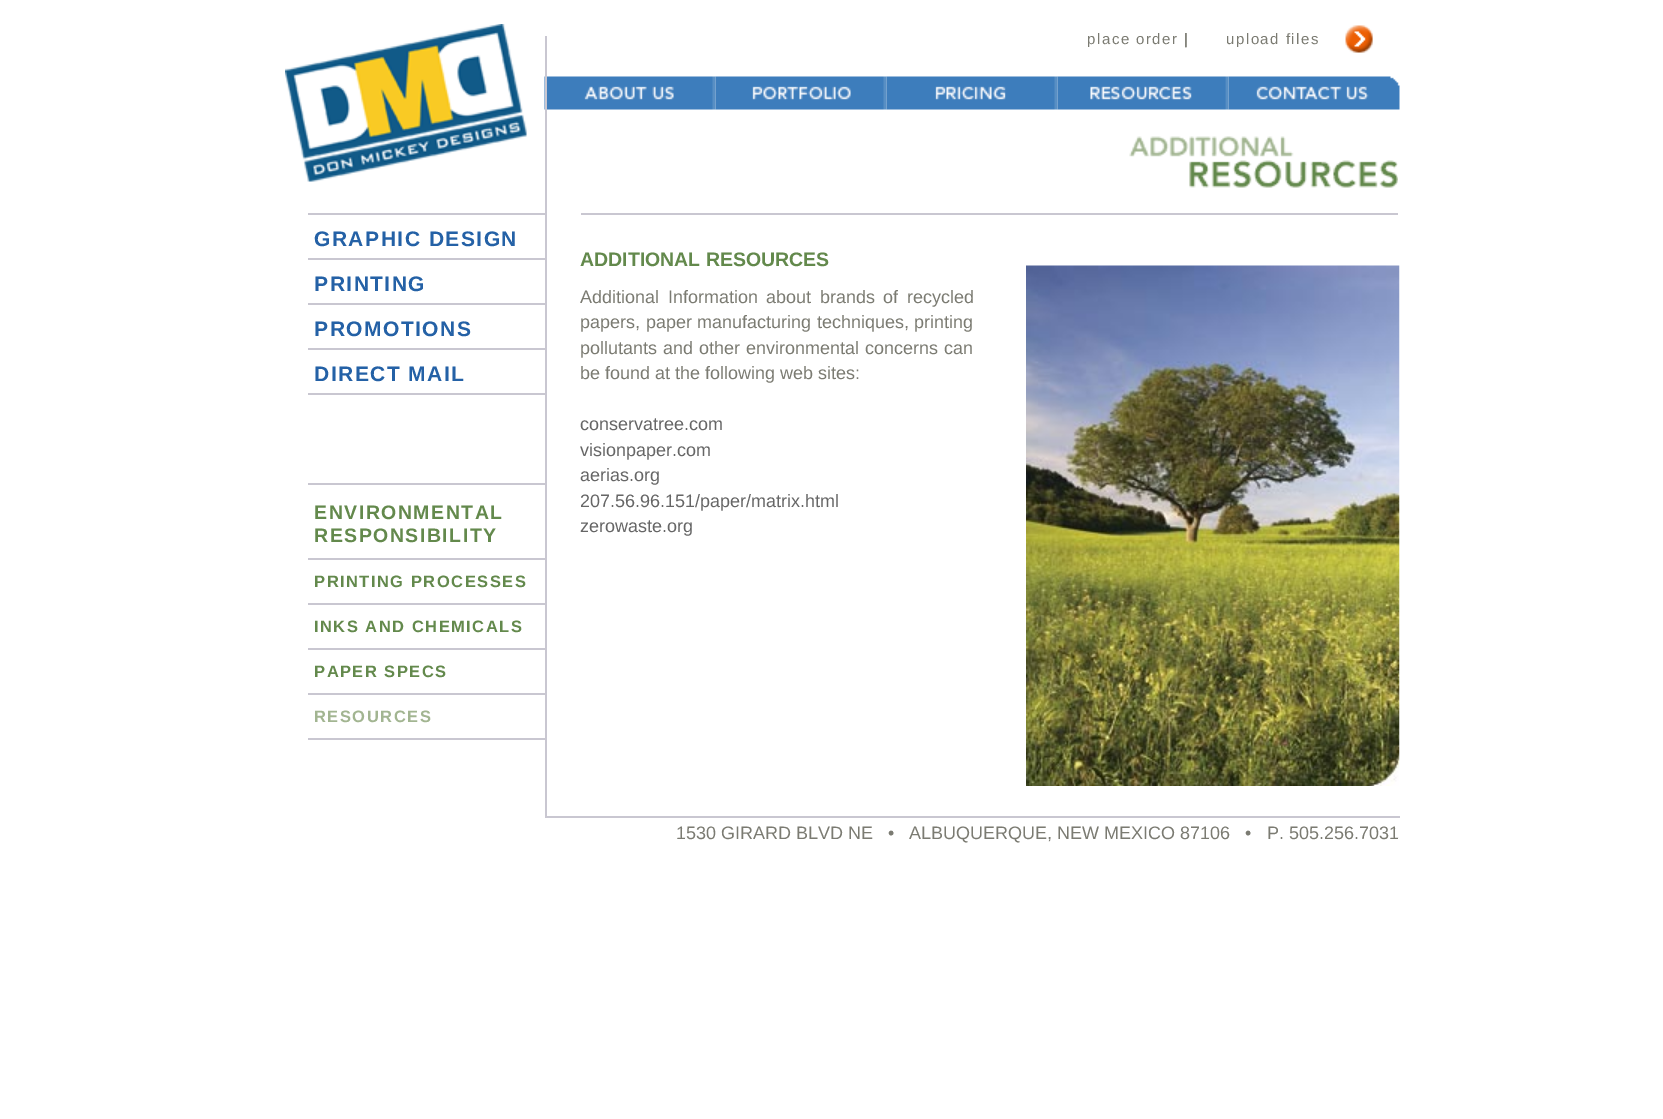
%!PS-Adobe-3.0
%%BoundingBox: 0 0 1663 1119
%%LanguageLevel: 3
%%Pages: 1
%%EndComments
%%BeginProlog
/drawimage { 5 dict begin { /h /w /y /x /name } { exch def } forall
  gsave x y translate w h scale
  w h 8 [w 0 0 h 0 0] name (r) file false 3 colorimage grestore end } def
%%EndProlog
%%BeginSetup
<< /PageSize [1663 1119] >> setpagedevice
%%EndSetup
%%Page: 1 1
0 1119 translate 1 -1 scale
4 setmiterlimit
1 setgray
0 0 1663 1119 rectfill
(images/1.raw) 285 24 242 158 drawimage
(images/2.raw) 1345 25 28 28 drawimage
(images/3.raw) 544 76 172 34 drawimage
0.788 0.78 0.82 setrgbcolor
545 36 2 179 rectfill
(images/4.raw) 715 76 172 34 drawimage
(images/5.raw) 886 76 172 34 drawimage
(images/6.raw) 1057 76 172 34 drawimage
(images/7.raw) 1228 76 172 34 drawimage
308 213 237 2 rectfill
308 258 237 2 rectfill
581 213 817 2 rectfill
(images/8.raw) 1129 136 269 52 drawimage
545 816 855 2 rectfill
545 215 2 603 rectfill
(images/9.raw) 1026 265 374 521 drawimage
308 303 237 2 rectfill
308 348 237 2 rectfill
308 393 237 2 rectfill
308 483 237 2 rectfill
308 558 237 2 rectfill
308 603 237 2 rectfill
308 648 237 2 rectfill
308 693 237 2 rectfill
308 738 237 2 rectfill
/LiberationSans-Regular [15 0 0 -15 0 0] selectfont
0.482 0.482 0.447 setrgbcolor
1087 44 moveto 1.5 0 (place order |) ashow
1184 44 moveto 1.5 0 (|) ashow
1226 44 moveto 1.5 0 (upload files) ashow
1296 44 moveto 1.5 0 (l) ashow
/LiberationSans-Bold [21 0 0 -21 0 0] selectfont
0.141 0.38 0.651 setrgbcolor
314 246 moveto 1.5 0 (GRAPHIC DESIGN) ashow
/LiberationSans-Bold [19.5 0 0 -19.5 0 0] selectfont
0.388 0.537 0.298 setrgbcolor
580 266 moveto (ADDITIONAL RESOURCES) show
/LiberationSans-Regular [18 0 0 -18 0 0] selectfont
0.482 0.482 0.447 setrgbcolor
580 303 moveto 3.5 0 32 (Additional Information about brands of recycled) widthshow
580 328 moveto 0.5 0 32 (papers, paper manufacturing techniques, printing) widthshow
580 354 moveto 1 0 32 (pollutants and other environmental concerns can) widthshow
580 379 moveto (be found at the following web sites:) show
0.4 setgray
580 430 moveto (conservatree.com) show
580 456 moveto (visionpaper.com) show
580 481 moveto (aerias.org) show
580 507 moveto (207.56.96.151/paper/matrix.html) show
580 532 moveto (zerowaste.org) show
0.482 0.482 0.447 setrgbcolor
676 839 moveto (1530 GIRARD BLVD NE   •   ALBUQUERQUE, NEW MEXICO 87106   •   P. 505.256.7031) show
/LiberationSans-Bold [21 0 0 -21 0 0] selectfont
0.141 0.38 0.651 setrgbcolor
314 291 moveto 1.5 0 (PRINTING) ashow
314 336 moveto 1.5 0 (PROMOTIONS) ashow
314 381 moveto 1.5 0 (DIRECT MAIL) ashow
/LiberationSans-Bold [19.5 0 0 -19.5 0 0] selectfont
0.388 0.537 0.298 setrgbcolor
314 519 moveto 1.5 0 (ENVIRONMENTAL) ashow
314 542 moveto 1.5 0 (RESPONSIBILITY) ashow
/LiberationSans-Bold [16.5 0 0 -16.5 0 0] selectfont
314 587 moveto 1.5 0 (PRINTING PROCESSES) ashow
314 632 moveto 1.5 0 (INKS AND CHEMICALS) ashow
314 677 moveto 1.5 0 (PAPER SPECS) ashow
0.635 0.71 0.569 setrgbcolor
314 722 moveto 1.5 0 (RESOURCES) ashow
showpage
%%EOF
